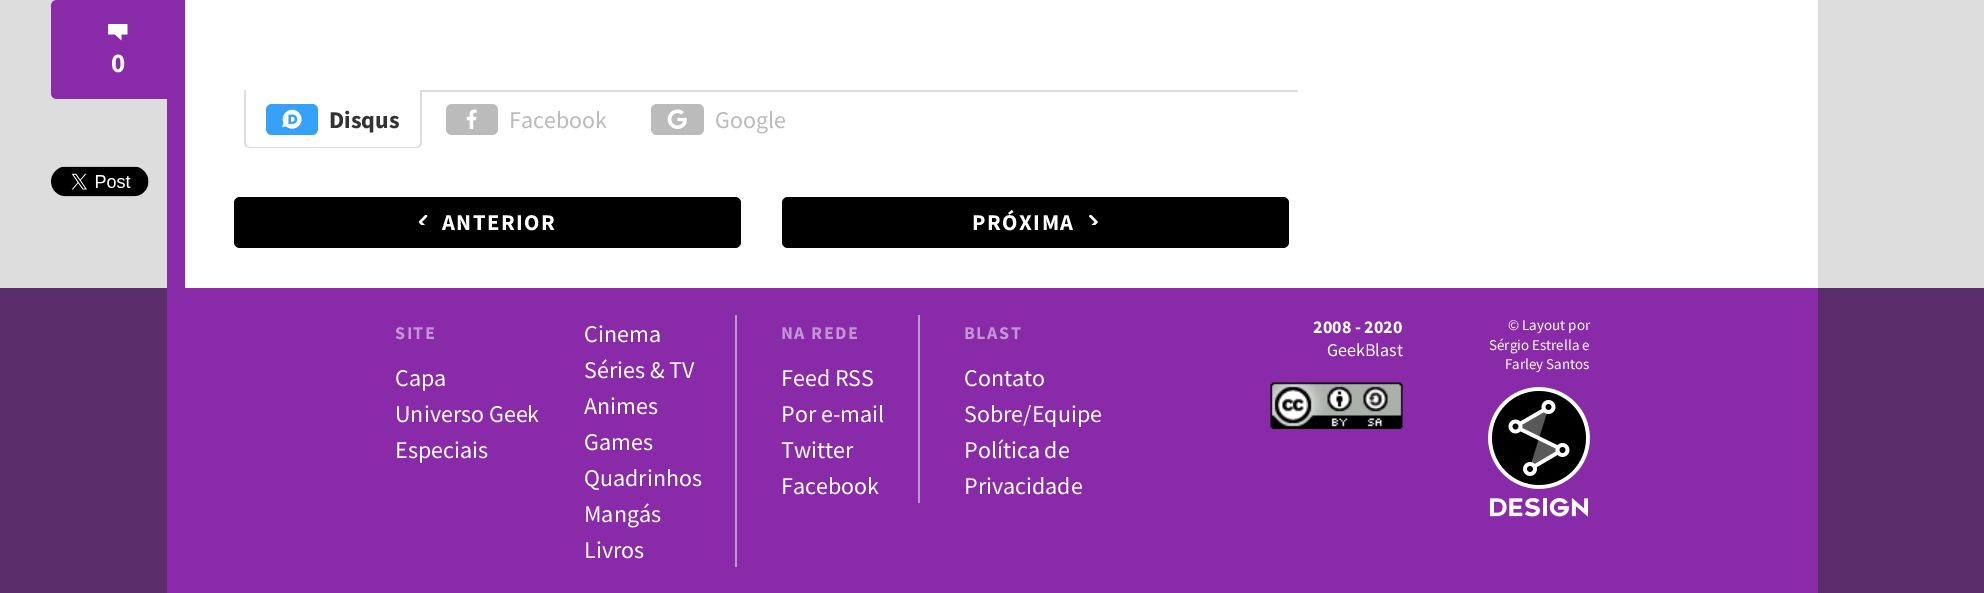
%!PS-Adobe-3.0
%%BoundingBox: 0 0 1984 593
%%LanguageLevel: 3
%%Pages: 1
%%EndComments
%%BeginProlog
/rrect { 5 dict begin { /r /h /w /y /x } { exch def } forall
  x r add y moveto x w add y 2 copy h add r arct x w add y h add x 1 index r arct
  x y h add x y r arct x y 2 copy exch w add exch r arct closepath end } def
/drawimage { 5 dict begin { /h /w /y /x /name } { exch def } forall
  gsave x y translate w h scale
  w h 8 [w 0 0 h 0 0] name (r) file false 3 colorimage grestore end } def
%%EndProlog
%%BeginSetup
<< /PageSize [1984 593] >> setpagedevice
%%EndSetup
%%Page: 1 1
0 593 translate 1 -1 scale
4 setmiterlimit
0.867 setgray
0 0 1984 593 rectfill
1 setgray
185 0 1633 288 rectfill
0.537 0.169 0.659 setrgbcolor
167 99 18 189 rectfill
newpath 57 0 moveto 185 0 lineto 185 99 lineto 57 99 lineto 53.5 99 51 96.5 51 93 curveto 51 6 lineto 51 2.5 53.5 0 57 0 curveto closepath fill
(images/1.raw) 108 24 20 17 drawimage
(images/2.raw) 51 166 98 31 drawimage
0.867 setgray
422 90 876 2 rectfill
newpath 244 90 moveto 422 90 lineto 422 142 lineto 422 146 419 148 416 148 curveto 250 148 lineto 247 148 244 146 244 142 curveto closepath 246 90 moveto 420 90 lineto 420 142 lineto 420 145 418 147 416 147 curveto 250 147 lineto 248 147 246 145 246 142 curveto closepath eofill
0.208 0.631 0.984 setrgbcolor
266 104 52 31 6 rrect fill
(images/3.raw) 282 109 20 20 drawimage
0.733 setgray
446 104 52 31 6 rrect fill
(images/4.raw) 466 109 11 20 drawimage
651 104 53 31 6 rrect fill
(images/5.raw) 667 109 20 20 drawimage
0 setgray
234 197 507 51 6 rrect fill
(images/6.raw) 419 215 9 10 drawimage
782 197 507 51 6 rrect fill
(images/7.raw) 1089 215 9 10 drawimage
0.361 0.176 0.42 setrgbcolor
0 288 1984 305 rectfill
0.537 0.169 0.659 setrgbcolor
167 288 1651 305 rectfill
0.769 0.584 0.831 setrgbcolor
735 315 2 252 rectfill
918 315 2 188 rectfill
(images/8.raw) 1270 382 133 47 drawimage
(images/9.raw) 1488 387 102 130 drawimage
/SourceSansPro-Bold [27 0 0 -27 0 0] selectfont
1 setgray
111 72 moveto (0) show
/SourceSansPro-Bold [24 0 0 -24 0 0] selectfont
0.2 setgray
329 128 moveto (Disqus) show
/SourceSansPro-Regular [24 0 0 -24 0 0] selectfont
0.733 setgray
509 128 moveto (Facebook) show
715 128 moveto (Google) show
/SourceSansPro-Bold [22.5 0 0 -22.5 0 0] selectfont
1 setgray
442 230 moveto 1.5 0 (ANTERIOR) ashow
972 230 moveto 1.5 0 (PRÓXIMA) ashow
/SourceSansPro-Bold [18 0 0 -18 0 0] selectfont
0.769 0.584 0.831 setrgbcolor
395 339 moveto 1.5 0 (SITE) ashow
/SourceSansPro-Regular [24 0 0 -24 0 0] selectfont
1 setgray
395 386 moveto (Capa) show
395 422 moveto (Universo Geek) show
395 458 moveto (Especiais) show
584 342 moveto (Cinema) show
584 378 moveto (Séries & TV) show
584 414 moveto (Animes) show
584 450 moveto (Games) show
584 486 moveto (Quadrinhos) show
584 522 moveto (Mangás) show
584 558 moveto (Livros) show
/SourceSansPro-Bold [18 0 0 -18 0 0] selectfont
0.769 0.584 0.831 setrgbcolor
781 339 moveto 1.5 0 (NA REDE) ashow
/SourceSansPro-Regular [24 0 0 -24 0 0] selectfont
1 setgray
781 386 moveto (Feed RSS) show
781 422 moveto (Por e-mail) show
781 458 moveto (Twitter) show
781 494 moveto (Facebook) show
/SourceSansPro-Bold [18 0 0 -18 0 0] selectfont
0.769 0.584 0.831 setrgbcolor
964 339 moveto 1.5 0 (BLAST) ashow
/SourceSansPro-Regular [24 0 0 -24 0 0] selectfont
1 setgray
964 386 moveto (Contato) show
964 422 moveto (Sobre/Equipe) show
964 458 moveto (Política de) show
964 494 moveto (Privacidade) show
/SourceSansPro-Bold [18 0 0 -18 0 0] selectfont
1313 333 moveto (2008 - 2020) show
/SourceSansPro-Regular [18 0 0 -18 0 0] selectfont
1327 356 moveto (GeekBlast) show
/SourceSansPro-Regular [15 0 0 -15 0 0] selectfont
1508 330 moveto (© Layout por) show
1489 350 moveto (Sérgio Estrella e) show
1505 369 moveto (Farley Santos) show
showpage
%%EOF
